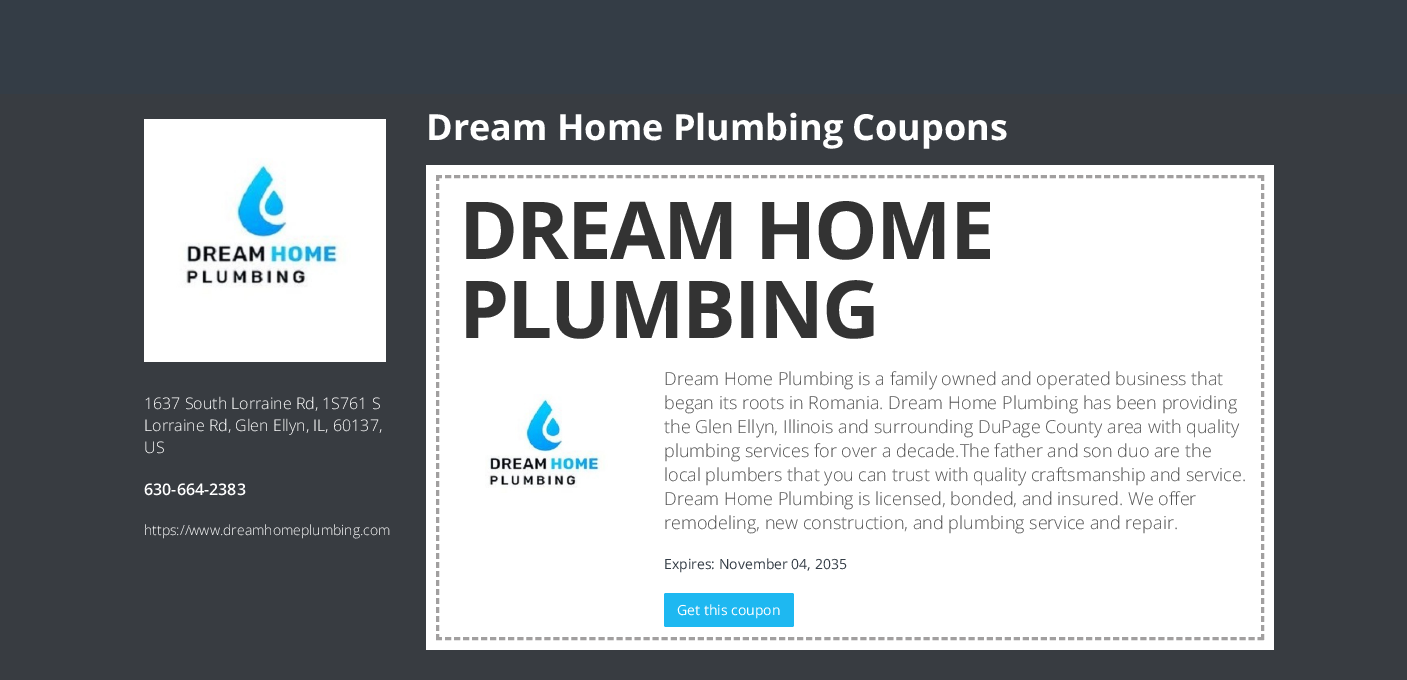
%!PS-Adobe-3.0
%%BoundingBox: 0 0 1407 680
%%LanguageLevel: 3
%%Pages: 1
%%EndComments
%%BeginProlog
/rrect { 5 dict begin { /r /h /w /y /x } { exch def } forall
  x r add y moveto x w add y 2 copy h add r arct x w add y h add x 1 index r arct
  x y h add x y r arct x y 2 copy exch w add exch r arct closepath end } def
/drawimage { 5 dict begin { /h /w /y /x /name } { exch def } forall
  gsave x y translate w h scale
  w h 8 [w 0 0 h 0 0] name (r) file false 3 colorimage grestore end } def
%%EndProlog
%%BeginSetup
<< /PageSize [1407 680] >> setpagedevice
%%EndSetup
%%Page: 1 1
0 680 translate 1 -1 scale
4 setmiterlimit
0.204 0.239 0.275 setrgbcolor
0 0 1407 680 rectfill
0.22 0.235 0.255 setrgbcolor
0 94 1407 586 rectfill
(images/1.raw) 144 119 242 243 drawimage
1 setgray
426 165 848 485 rectfill
0.631 0.624 0.624 setrgbcolor
3 setlinewidth
[6 3.03] 0 setdash
newpath 436 176.5 moveto 1264 176.5 lineto stroke
[6 3] 0 setdash
newpath 1262.5 175 moveto 1262.5 640 lineto stroke
[6 3.03] 0 setdash
newpath 436 638.5 moveto 1264 638.5 lineto stroke
[6 3] 0 setdash
newpath 437.5 175 moveto 437.5 640 lineto stroke
(images/2.raw) 485 394 123 99 drawimage
0.118 0.722 0.945 setrgbcolor
664 593 130 34 2 rrect fill
/OpenSans-Light [16 0 0 -16 0 0] selectfont
1 setgray
144 409 moveto (1637 South Lorraine Rd, 1S761 S) show
144 431 moveto (Lorraine Rd, Glen Ellyn, IL, 60137,) show
144 453 moveto (US) show
/OpenSans-SemiBold [16 0 0 -16 0 0] selectfont
144 495 moveto (630-664-2383) show
/OpenSans-Light [14 0 0 -14 0 0] selectfont
144 535 moveto (https://www.dreamhomeplumbing.com) show
/OpenSans-Bold [36 0 0 -36 0 0] selectfont
426 140 moveto (Dream Home Plumbing Coupons) show
/OpenSans-Bold [80 0 0 -80 0 0] selectfont
0.2 setgray
459 259 moveto -2 0 (DREAM HOME) ashow
459 338 moveto -2 0 (PLUMBING) ashow
/OpenSans-Light [18 0 0 -18 0 0] selectfont
0.333 setgray
664 385 moveto (Dream Home Plumbing is a family owned and operated business that) show
664 409 moveto (began its roots in Romania. Dream Home Plumbing has been providing) show
664 433 moveto (the Glen Ellyn, Illinois and surrounding DuPage County area with quality) show
664 457 moveto (plumbing services for over a decade.The father and son duo are the) show
664 481 moveto (local plumbers that you can trust with quality craftsmanship and service.) show
664 505 moveto (Dream Home Plumbing is licensed, bonded, and insured. We offer) show
664 529 moveto (remodeling, new construction, and plumbing service and repair.) show
/OpenSans-Regular [14 0 0 -14 0 0] selectfont
0.204 0.239 0.275 setrgbcolor
664 569 moveto (Expires: November 04, 2035) show
1 setgray
677 615 moveto (Get this coupon) show
showpage
%%EOF
